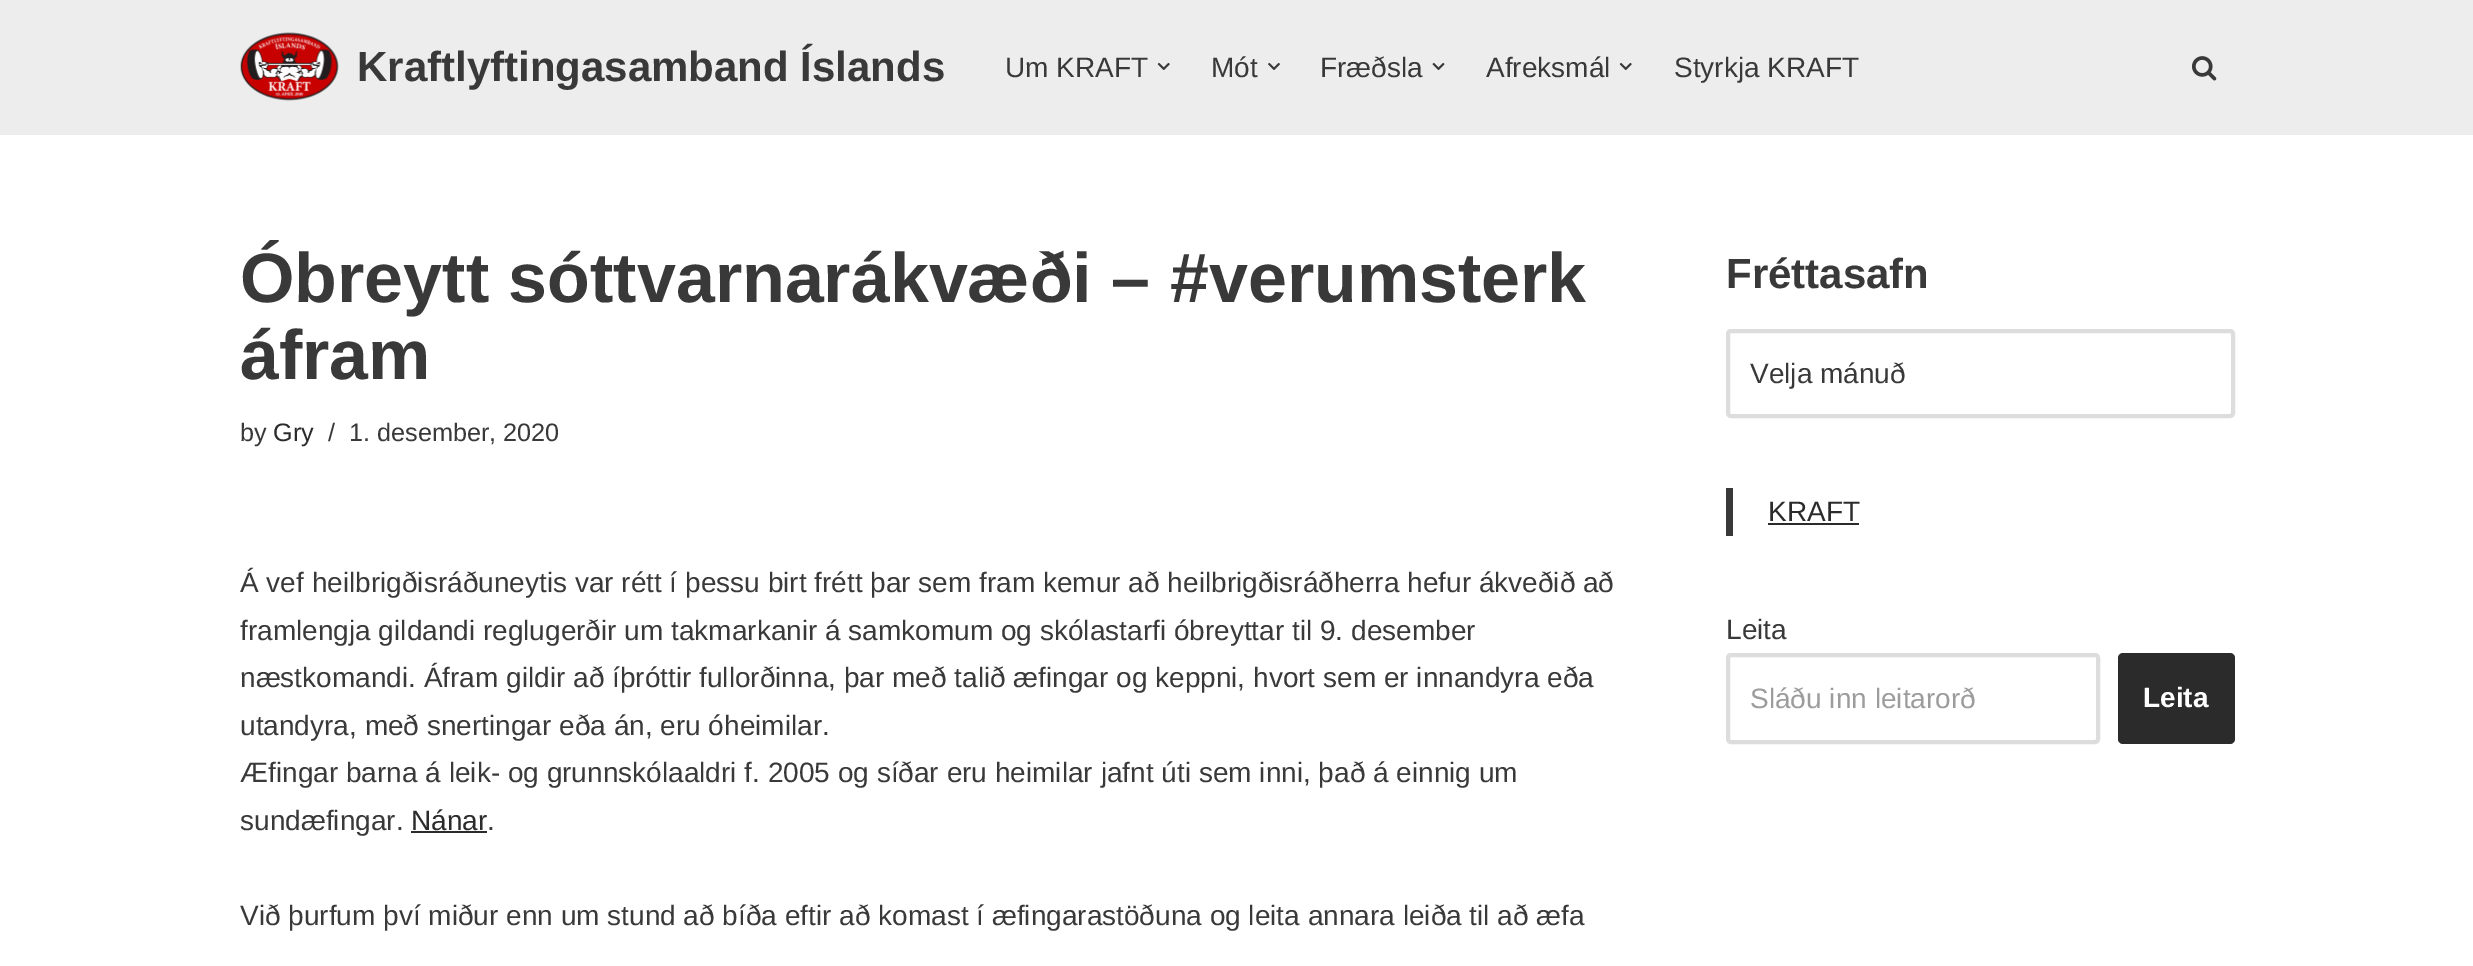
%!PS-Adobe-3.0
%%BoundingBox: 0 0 2473 966
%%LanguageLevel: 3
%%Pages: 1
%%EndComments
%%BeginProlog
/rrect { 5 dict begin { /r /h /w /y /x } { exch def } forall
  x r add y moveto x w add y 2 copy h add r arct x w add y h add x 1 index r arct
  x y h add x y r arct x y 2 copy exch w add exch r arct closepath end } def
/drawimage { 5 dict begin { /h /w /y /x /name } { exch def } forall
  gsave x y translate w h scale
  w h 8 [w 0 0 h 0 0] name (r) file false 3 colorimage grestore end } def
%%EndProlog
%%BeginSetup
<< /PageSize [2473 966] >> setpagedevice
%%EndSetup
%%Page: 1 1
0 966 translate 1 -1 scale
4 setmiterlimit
1 setgray
0 0 2473 966 rectfill
0.929 setgray
0 0 2473 135 rectfill
(images/1.raw) 240 32 99 69 drawimage
(images/2.raw) 1157 62 13 9 drawimage
(images/3.raw) 1268 62 12 8 drawimage
(images/4.raw) 1432 62 13 9 drawimage
(images/2.raw) 1619 62 13 9 drawimage
(images/5.raw) 2191 56 26 25 drawimage
0.169 setgray
411 831 76 2 rectfill
0.867 setgray
4 setlinewidth
1728 331 505 85 3 rrect stroke
0.224 setgray
1726 488 7 48 rectfill
0.169 setgray
1768 523 91 2 rectfill
0.867 setgray
1728 655 370 87 3 rrect stroke
0.169 setgray
2118 653 117 91 5 rrect fill
/LiberationSans-Bold [42 0 0 -42 0 0] selectfont
0.224 setgray
357 81 moveto (Kraftlyftingasamband Íslands) show
/LiberationSans-Regular [28 0 0 -28 0 0] selectfont
1005 77 moveto (Um KRAFT) show
1211 77 moveto (Mót) show
1320 77 moveto (Fræðsla) show
1486 77 moveto (Afreksmál) show
1674 77 moveto (Styrkja KRAFT) show
/LiberationSans-Bold [70 0 0 -70 0 0] selectfont
240 302 moveto (Óbreytt sóttvarnarákvæði – #verumsterk) show
240 379 moveto (áfram) show
/LiberationSans-Regular [25.25 0 0 -25.25 0 0] selectfont
240 441 moveto (by) show
0.169 setgray
273 441 moveto (Gry) show
0.224 setgray
328 441 moveto (/) show
349 441 moveto (1. desember, 2020) show
/LiberationSans-Regular [28 0 0 -28 0 0] selectfont
240 592 moveto (Á vef heilbrigðisráðuneytis var rétt í þessu birt frétt þar sem fram kemur að heilbrigðisráðherra hefur ákveðið að) show
240 640 moveto (framlengja gildandi reglugerðir um takmarkanir á samkomum og skólastarfi óbreyttar til 9. desember) show
240 687 moveto (næstkomandi. Áfram gildir að íþróttir fullorðinna, þar með talið æfingar og keppni, hvort sem er innandyra eða) show
240 735 moveto (utandyra, með snertingar eða án, eru óheimilar.) show
240 782 moveto (Æfingar barna á leik- og grunnskólaaldri f. 2005 og síðar eru heimilar jafnt úti sem inni, það á einnig um) show
240 830 moveto (sundæfingar.) show
0.169 setgray
411 830 moveto (Nánar) show
0.224 setgray
487 830 moveto (.) show
240 925 moveto (Við þurfum því miður enn um stund að bíða eftir að komast í æfingarastöðuna og leita annara leiða til að æfa) show
/LiberationSans-Bold [42 0 0 -42 0 0] selectfont
1726 288 moveto (Fréttasafn) show
/LiberationSans-Regular [28 0 0 -28 0 0] selectfont
1750 383 moveto (Velja mánuð) show
0.169 setgray
1768 521 moveto (KRAFT) show
0.224 setgray
1726 639 moveto (Leita) show
0.612 setgray
1750 708 moveto (Sláðu inn leitarorð) show
/LiberationSans-Bold [28 0 0 -28 0 0] selectfont
1 setgray
2143 707 moveto (Leita) show
showpage
%%EOF
